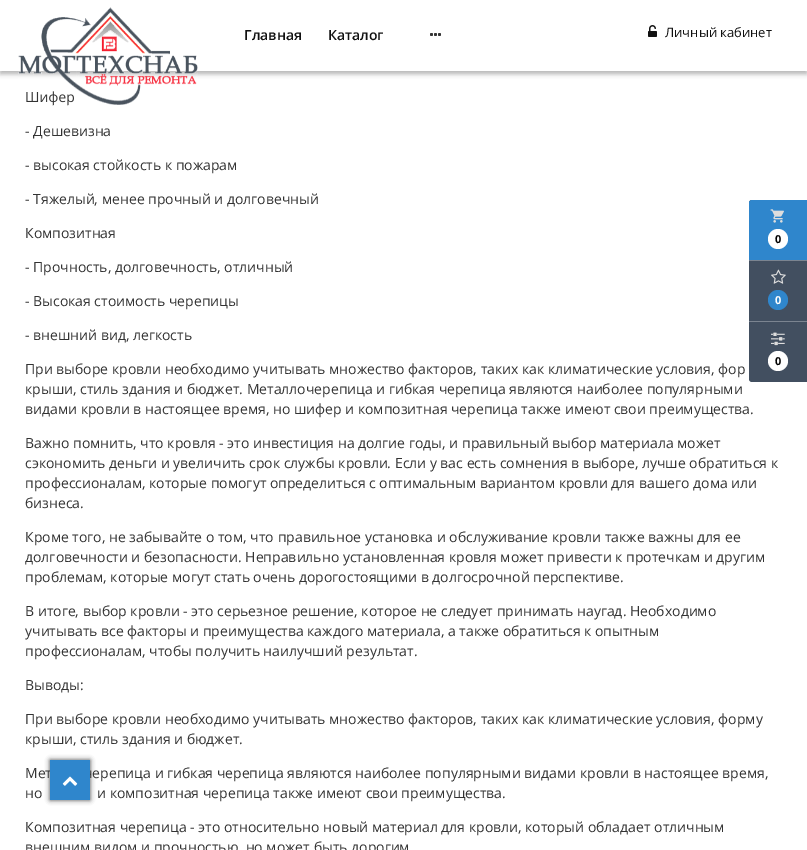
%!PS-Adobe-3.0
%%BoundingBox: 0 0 807 850
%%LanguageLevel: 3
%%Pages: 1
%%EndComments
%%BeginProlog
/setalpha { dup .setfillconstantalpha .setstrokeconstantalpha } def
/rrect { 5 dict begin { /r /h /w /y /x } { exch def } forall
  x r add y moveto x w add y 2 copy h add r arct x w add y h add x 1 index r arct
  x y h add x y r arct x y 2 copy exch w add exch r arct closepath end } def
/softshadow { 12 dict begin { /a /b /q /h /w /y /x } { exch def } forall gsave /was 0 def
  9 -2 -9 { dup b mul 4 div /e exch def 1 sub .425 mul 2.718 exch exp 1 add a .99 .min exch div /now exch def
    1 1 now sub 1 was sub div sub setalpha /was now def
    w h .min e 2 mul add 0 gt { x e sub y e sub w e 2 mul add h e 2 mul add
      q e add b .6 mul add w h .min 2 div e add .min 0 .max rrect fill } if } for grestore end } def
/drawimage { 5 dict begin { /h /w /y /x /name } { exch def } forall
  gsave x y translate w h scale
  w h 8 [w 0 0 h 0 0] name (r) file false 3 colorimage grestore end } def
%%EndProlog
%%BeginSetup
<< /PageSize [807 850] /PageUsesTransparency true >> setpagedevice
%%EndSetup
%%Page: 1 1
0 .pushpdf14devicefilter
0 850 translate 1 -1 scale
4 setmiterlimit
1 setgray
0 0 807 850 rectfill
0 setgray
0 3 807 71 0 2.5 0.3 softshadow
1 setgray
0 0 807 71 rectfill
(images/2.raw) 430 33 11 3 drawimage
(images/3.raw) 648 25 9 12 drawimage
0.259 0.31 0.376 setrgbcolor
newpath 752 200 moveto 807 200 lineto 807 382 lineto 752 382 lineto 750.5 382 749 380.5 749 379 curveto 749 203 lineto 749 201.5 750.5 200 752 200 curveto closepath fill
0.482 0.518 0.565 setrgbcolor
749 260 58 1 rectfill
0.184 0.525 0.8 setrgbcolor
newpath 752 200 moveto 807 200 lineto 807 260 lineto 749 260 lineto 749 203 lineto 749 201.5 750.5 200 752 200 curveto closepath fill
(images/4.raw) 770 209 14 14 drawimage
1 setgray
newpath 778 239 10 0 360 arc closepath fill
0.482 0.518 0.565 setrgbcolor
749 321 58 1 rectfill
(images/5.raw) 771 269 15 15 drawimage
0.184 0.525 0.8 setrgbcolor
newpath 778 300 10 0 360 arc closepath fill
(images/6.raw) 771 332 14 14 drawimage
1 setgray
newpath 778 361 10 0 360 arc closepath fill
0 setgray
50 760 40 40 0 2.5 0.7 softshadow
/OpenSans-SemiBold [14 0 0 -14 0 0] selectfont
0.067 setgray
244 40 moveto (Главная) show
328 40 moveto (Каталог) show
/OpenSans-Regular [13 0 0 -13 0 0] selectfont
665 37 moveto (Личный кабинет) show
/OpenSans-Regular [14 0 0 -14 0 0] selectfont
0.2 setgray
25 102 moveto (Шифер) show
(images/1.raw) 18 7 180 98 drawimage
25 136 moveto (- Дешевизна) show
25 170 moveto (- высокая стойкость к пожарам) show
25 204 moveto (- Тяжелый, менее прочный и долговечный) show
25 238 moveto (Композитная) show
25 272 moveto (- Прочность, долговечность, отличный) show
25 306 moveto (- Высокая стоимость черепицы) show
25 340 moveto (- внешний вид, легкость) show
25 374 moveto (При выборе кровли необходимо учитывать множество факторов, таких как климатические условия, фор) show
25 394 moveto (крыши, стиль здания и бюджет. Металлочерепица и гибкая черепица являются наиболее популярными) show
25 414 moveto (видами кровли в настоящее время, но шифер и композитная черепица также имеют свои преимущества.) show
25 448 moveto (Важно помнить, что кровля - это инвестиция на долгие годы, и правильный выбор материала может) show
25 468 moveto (сэкономить деньги и увеличить срок службы кровли. Если у вас есть сомнения в выборе, лучше обратиться к) show
25 488 moveto (профессионалам, которые помогут определиться с оптимальным вариантом кровли для вашего дома или) show
25 508 moveto (бизнеса.) show
25 542 moveto (Кроме того, не забывайте о том, что правильное установка и обслуживание кровли также важны для ее) show
25 562 moveto (долговечности и безопасности. Неправильно установленная кровля может привести к протечкам и другим) show
25 582 moveto (проблемам, которые могут стать очень дорогостоящими в долгосрочной перспективе.) show
25 616 moveto (В итоге, выбор кровли - это серьезное решение, которое не следует принимать наугад. Необходимо) show
25 636 moveto (учитывать все факторы и преимущества каждого материала, а также обратиться к опытным) show
25 656 moveto (профессионалам, чтобы получить наилучший результат.) show
25 690 moveto (Выводы:) show
25 724 moveto (При выборе кровли необходимо учитывать множество факторов, таких как климатические условия, форму) show
25 744 moveto (крыши, стиль здания и бюджет.) show
25 778 moveto (Мет) show
84 778 moveto (черепица и гибкая черепица являются наиболее популярными видами кровли в настоящее время,) show
25 798 moveto (но) show
97 798 moveto (и композитная черепица также имеют свои преимущества.) show
25 832 moveto (Композитная черепица - это относительно новый материал для кровли, который обладает отличным) show
25 852 moveto (внешним видом и прочностью, но может быть дорогим) show
/OpenSans-Bold [11 0 0 -11 0 0] selectfont
0 setgray
775 243 moveto (0) show
1 setgray
775 304 moveto (0) show
0 setgray
775 365 moveto (0) show
0.184 0.525 0.8 setrgbcolor
50 760 40 40 rectfill
(images/7.raw) 62 776 16 10 drawimage
.poppdf14devicefilter showpage
%%EOF
